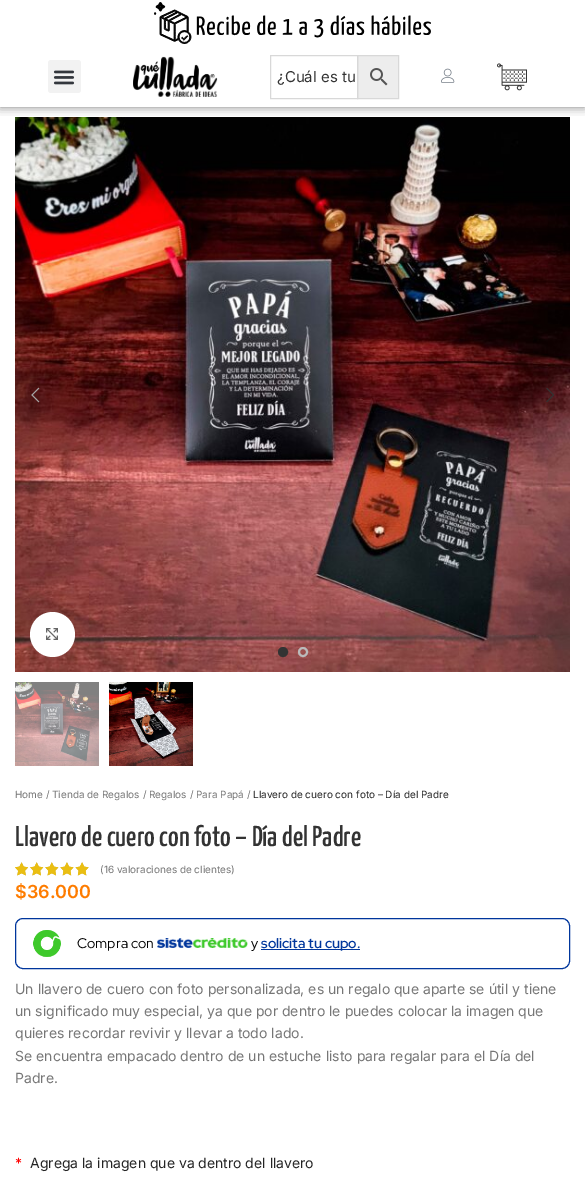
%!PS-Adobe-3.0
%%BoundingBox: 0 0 585 1178
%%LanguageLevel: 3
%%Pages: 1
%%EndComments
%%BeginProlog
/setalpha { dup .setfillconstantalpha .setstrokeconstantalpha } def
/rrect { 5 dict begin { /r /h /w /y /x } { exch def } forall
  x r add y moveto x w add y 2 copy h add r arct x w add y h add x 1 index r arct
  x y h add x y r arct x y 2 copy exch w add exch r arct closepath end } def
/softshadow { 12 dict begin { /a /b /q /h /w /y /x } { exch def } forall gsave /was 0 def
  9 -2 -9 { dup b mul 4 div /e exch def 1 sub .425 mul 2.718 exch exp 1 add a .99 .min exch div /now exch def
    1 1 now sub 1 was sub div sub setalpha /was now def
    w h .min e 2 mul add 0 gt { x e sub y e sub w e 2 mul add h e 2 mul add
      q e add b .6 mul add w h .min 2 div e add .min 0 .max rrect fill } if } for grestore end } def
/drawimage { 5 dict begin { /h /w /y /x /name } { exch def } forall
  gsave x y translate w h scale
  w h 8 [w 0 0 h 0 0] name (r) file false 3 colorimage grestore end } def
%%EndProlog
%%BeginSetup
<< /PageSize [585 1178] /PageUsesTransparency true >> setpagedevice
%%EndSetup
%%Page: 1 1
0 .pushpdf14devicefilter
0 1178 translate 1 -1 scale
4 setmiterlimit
1 setgray
0 0 585 1178 rectfill
(images/7.raw) 15 117 555 555 drawimage
gsave
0 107 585 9 rectclip
0 setgray
0 0 585 107 0 5 0.5 softshadow
grestore
(images/1.raw) 154 2 277 42 drawimage
0.949 setgray
48 60 33 33 3 rrect fill
(images/2.raw) 53 70 22 15 drawimage
(images/3.raw) 133 56 85 41 drawimage
0.929 setgray
newpath 357.5 55.5 moveto 398.5 55.5 lineto 398.5 98.5 lineto 357.5 98.5 lineto closepath gsave fill grestore
0.847 setgray
stroke
270.5 55.5 87 43 rectstroke
(images/4.raw) 370 68 18 18 drawimage
(images/5.raw) 441 68 14 15 drawimage
(images/6.raw) 497 63 30 28 drawimage
(images/8.raw) 31 387 9 16 drawimage
(images/9.raw) 546 388 8 14 drawimage
0 setgray
30 612 45 45 22.5 2.5 0.08 softshadow
1 setgray
newpath 52.5 634.5 22.5 0 360 arc closepath fill
(images/10.raw) 46 628 12 12 drawimage
0.2 setgray
newpath 283 652 4 0 360 arc closepath gsave fill grestore
2 setlinewidth
stroke
0.733 setgray
newpath 303 652 4 0 360 arc closepath stroke
(images/11.raw) 15 682 84 84 drawimage
(images/12.raw) 109 682 84 84 drawimage
(images/13.raw) 15 862 74 14 drawimage
(images/14.raw) 15 862 74 14 drawimage
(images/15.raw) 15 862 74 14 drawimage
0 0.212 0.612 setrgbcolor
1 setlinewidth
15.5 918.5 554 50 7.5 rrect stroke
(images/16.raw) 33 930 28 27 drawimage
(images/17.raw) 157 938 91 10 drawimage
261 949 99 1 rectfill
/Inter-Regular [15 0 0 -15 0 0] selectfont
0.2 setgray
277 82 moveto (¿Cuál es tu) show
/Inter-Regular [10 0 0 -10 0 0] selectfont
0.463 setgray
15 798 moveto (Home) show
46 798 moveto (/) show
52 798 moveto (Tienda de Regalos) show
143 798 moveto (/) show
149 798 moveto (Regalos) show
190 798 moveto (/) show
196 798 moveto (Para Papá) show
247 798 moveto (/) show
0.141 setgray
253 798 moveto (Llavero de cuero con foto – Día del Padre) show
/YanoneKaffeesatz-Medium [28.75 0 0 -28.75 0 0] selectfont
0.2 setgray
15 846 moveto (Llavero de cuero con foto – Día del Padre) show
/Inter-Regular [10 0 0 -10 0 0] selectfont
0.463 setgray
100 873 moveto (\(16 valoraciones de clientes\)) show
/Inter-SemiBold [18 0 0 -18 0 0] selectfont
0.996 0.486 0 setrgbcolor
15 898 moveto ($36.000) show
/RedHatDisplay-Regular [14 0 0 -14 0 0] selectfont
0 setgray
77 948 moveto (Compra con) show
251 948 moveto (y) show
/RedHatDisplay-SemiBold [14 0 0 -14 0 0] selectfont
0 0.212 0.612 setrgbcolor
261 948 moveto (solicita tu cupo.) show
/Inter-Regular [14 0 0 -14 0 0] selectfont
0.463 setgray
15 994 moveto (Un llavero de cuero con foto personalizada, es un regalo que aparte se útil y tiene) show
15 1016 moveto (un significado muy especial, ya que por dentro le puedes colocar la imagen que) show
15 1038 moveto (quieres recordar revivir y llevar a todo lado.) show
15 1061 moveto (Se encuentra empacado dentro de un estuche listo para regalar para el Día del) show
15 1083 moveto (Padre.) show
1 0 0 setrgbcolor
15 1168 moveto (*) show
0.141 setgray
30 1168 moveto (Agrega la imagen que va dentro del llavero) show
.poppdf14devicefilter showpage
%%EOF
